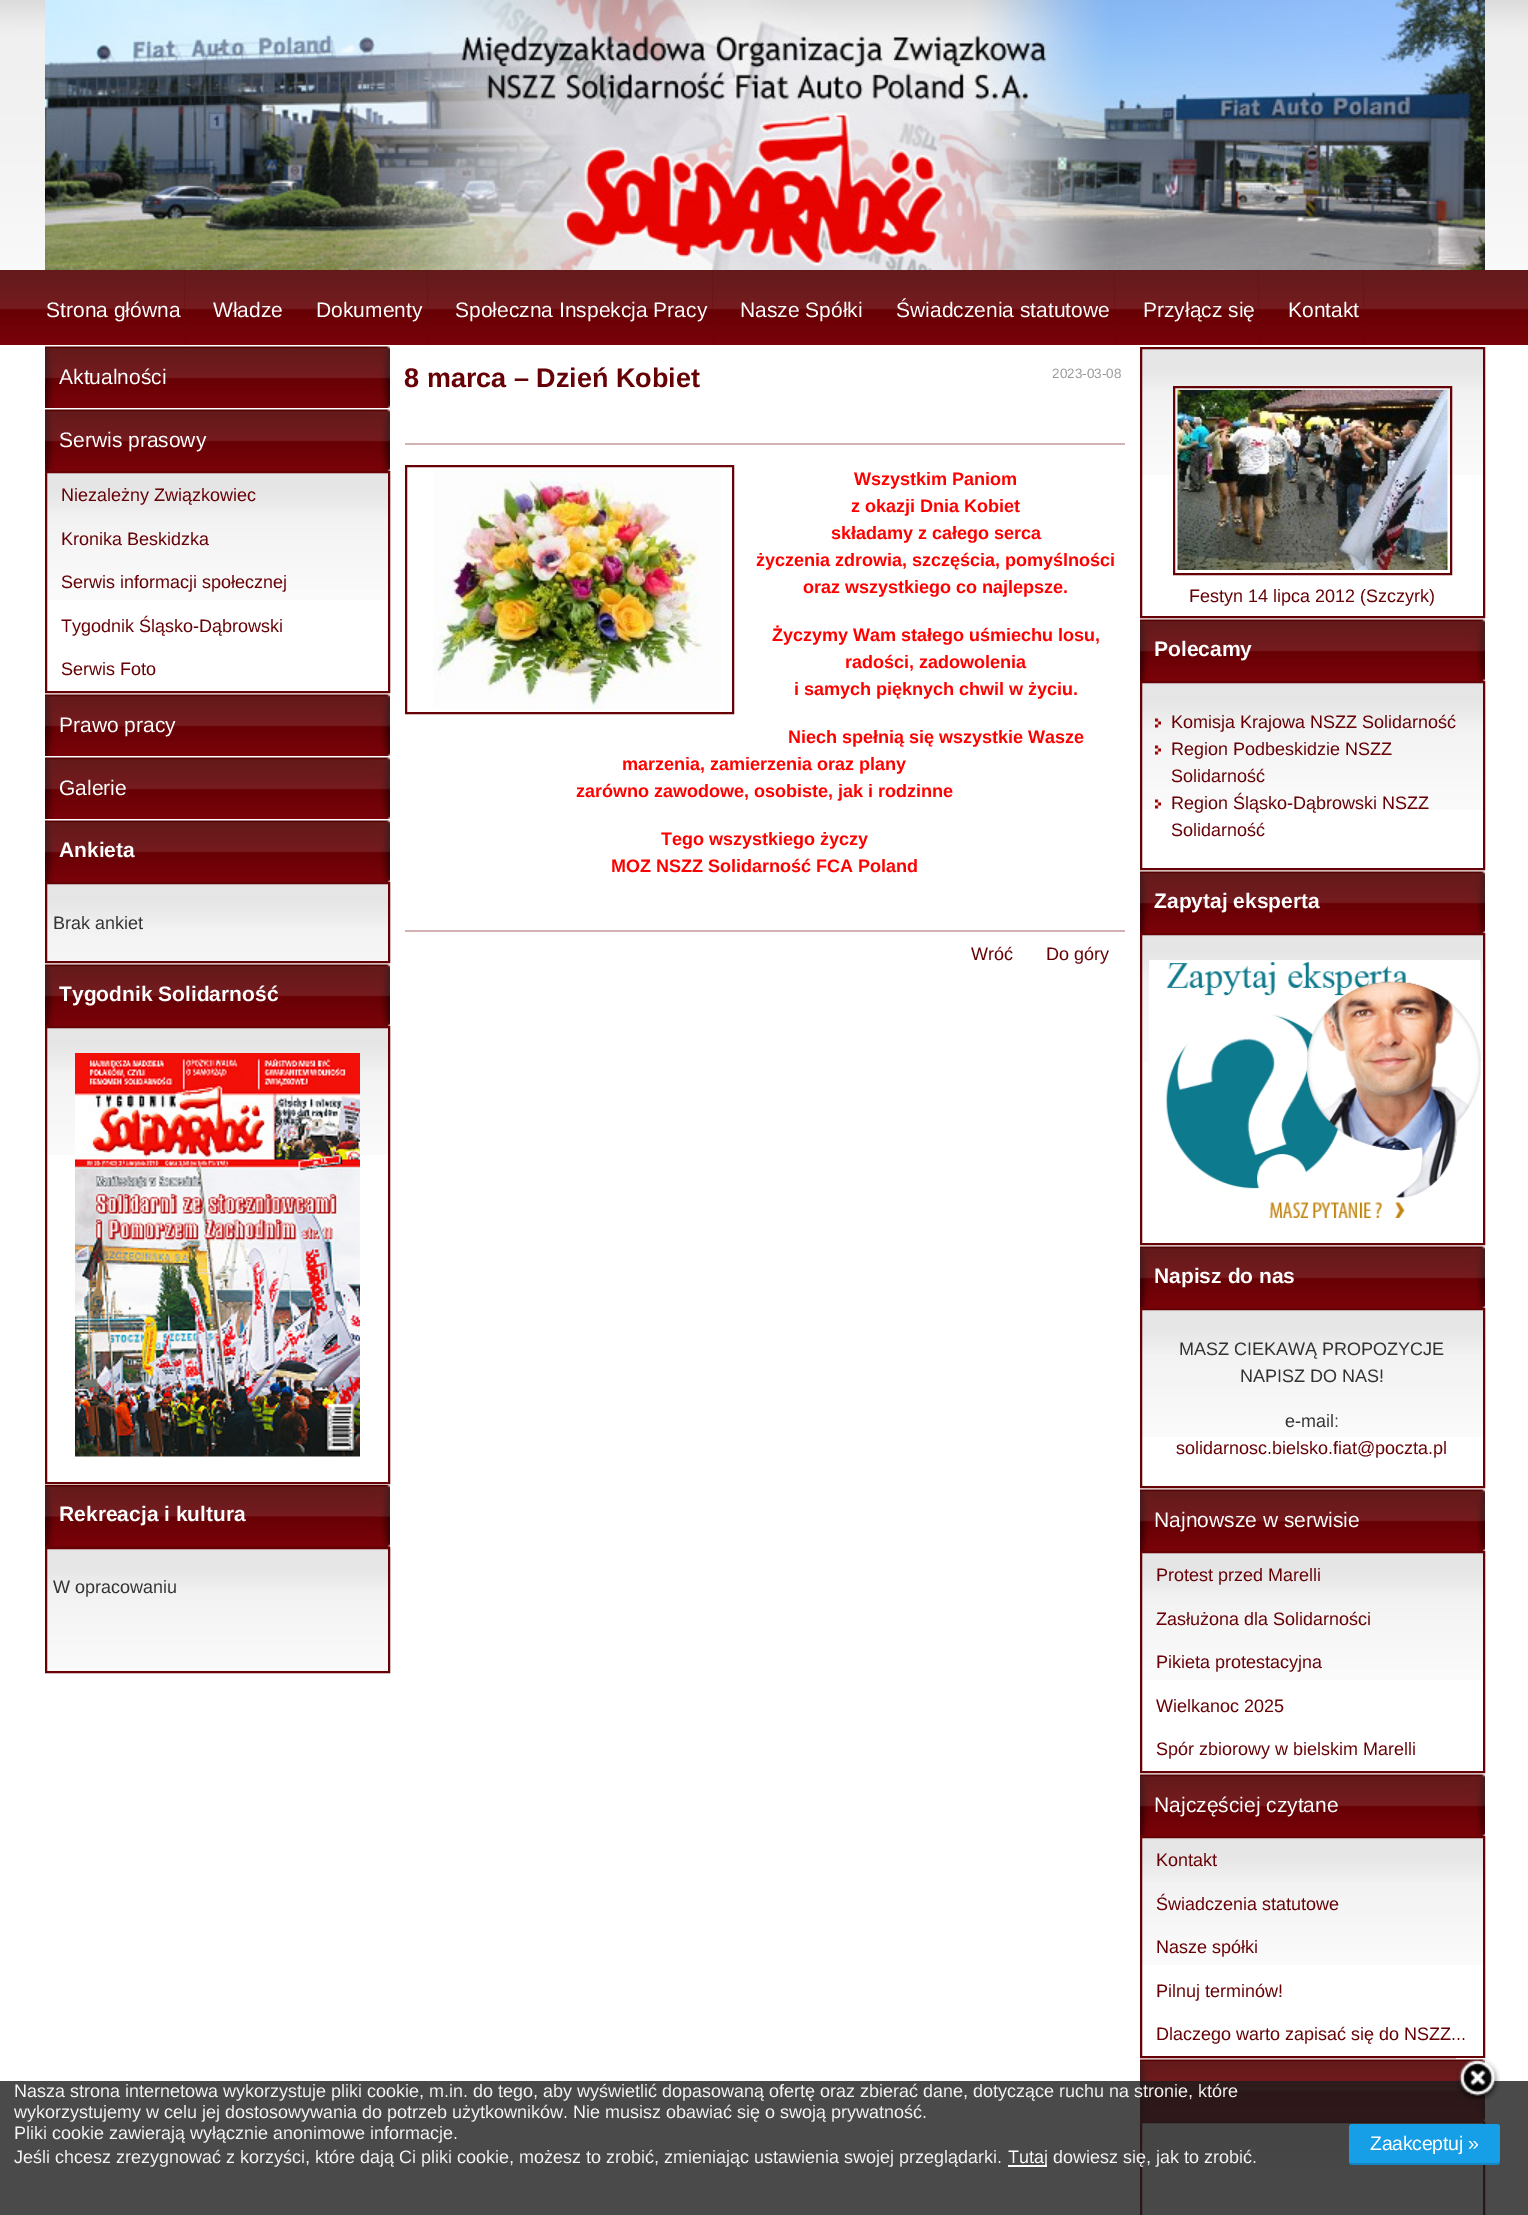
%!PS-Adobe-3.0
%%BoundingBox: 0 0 1528 2215
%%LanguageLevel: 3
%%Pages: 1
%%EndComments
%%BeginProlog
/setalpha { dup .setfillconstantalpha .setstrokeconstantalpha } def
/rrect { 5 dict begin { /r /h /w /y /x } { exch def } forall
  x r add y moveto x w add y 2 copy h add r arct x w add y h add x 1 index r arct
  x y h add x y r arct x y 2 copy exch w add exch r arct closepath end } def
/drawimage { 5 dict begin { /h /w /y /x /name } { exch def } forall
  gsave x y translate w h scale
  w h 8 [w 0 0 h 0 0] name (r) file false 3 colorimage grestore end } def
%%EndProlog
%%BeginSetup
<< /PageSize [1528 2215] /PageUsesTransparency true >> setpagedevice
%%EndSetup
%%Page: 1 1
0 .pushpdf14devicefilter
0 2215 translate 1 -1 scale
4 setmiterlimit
1 setgray
0 0 1528 2215 rectfill
(images/1.raw) 0 0 1528 270 drawimage
(images/2.raw) 45 0 1440 270 drawimage
(images/3.raw) 0 270 1528 75 drawimage
(images/4.raw) 42 270 143 72 drawimage
(images/5.raw) 184 270 4 75 drawimage
(images/6.raw) 209 270 79 72 drawimage
0.475 0.004 0.035 setrgbcolor
288 344 4 1 rectfill
(images/7.raw) 312 270 116 72 drawimage
(images/5.raw) 427 270 4 75 drawimage
(images/8.raw) 452 270 261 72 drawimage
(images/5.raw) 712 270 4 75 drawimage
(images/9.raw) 737 270 130 72 drawimage
867 344 4 1 rectfill
(images/10.raw) 891 270 224 72 drawimage
(images/5.raw) 1114 270 4 75 drawimage
(images/11.raw) 1139 270 120 72 drawimage
(images/5.raw) 1258 270 4 75 drawimage
(images/12.raw) 1283 270 81 72 drawimage
(images/5.raw) 1363 270 4 75 drawimage
(images/13.raw) 45 346 345 62 drawimage
(images/13.raw) 45 409 345 62 drawimage
(images/14.raw) 47 473 341 127 drawimage
0.4 0.004 0.02 setrgbcolor
2 setlinewidth
46 472 343 220 rectstroke
(images/13.raw) 45 694 345 62 drawimage
(images/13.raw) 45 757 345 62 drawimage
(images/13.raw) 45 820 345 62 drawimage
(images/15.raw) 47 884 341 77 drawimage
46 883 343 79 rectstroke
(images/13.raw) 45 964 345 62 drawimage
(images/14.raw) 47 1028 341 127 drawimage
46 1027 343 456 rectstroke
(images/16.raw) 75 1053 285 404 drawimage
45 1546 345 1 rectfill
(images/17.raw) 45 1485 345 62 drawimage
(images/18.raw) 47 1549 341 122 drawimage
46 1548 343 124 rectstroke
0.824 0.698 0.702 setrgbcolor
405 443 720 2 rectfill
0.4 0.004 0.02 setrgbcolor
406 466 327 247 rectstroke
(images/19.raw) 433 469 288 241 drawimage
0.824 0.698 0.702 setrgbcolor
405 930 720 2 rectfill
(images/20.raw) 1142 349 341 126 drawimage
0.4 0.004 0.02 setrgbcolor
1141 348 343 269 rectstroke
1174 387 277 187 rectstroke
(images/21.raw) 1177 390 271 180 drawimage
(images/22.raw) 1140 619 345 62 drawimage
(images/14.raw) 1142 683 341 127 drawimage
1141 682 343 187 rectstroke
(images/23.raw) 1155 718 6 10 drawimage
(images/24.raw) 1155 745 6 10 drawimage
(images/25.raw) 1155 799 6 10 drawimage
(images/22.raw) 1140 871 345 62 drawimage
(images/14.raw) 1142 935 341 127 drawimage
1141 934 343 310 rectstroke
(images/26.raw) 1149 960 332 258 drawimage
(images/22.raw) 1140 1246 345 62 drawimage
(images/14.raw) 1142 1310 341 127 drawimage
1141 1309 343 178 rectstroke
(images/22.raw) 1140 1489 345 62 drawimage
(images/14.raw) 1142 1553 341 127 drawimage
1141 1552 343 220 rectstroke
(images/22.raw) 1140 1774 345 62 drawimage
(images/14.raw) 1142 1838 341 127 drawimage
1141 1837 343 220 rectstroke
(images/22.raw) 1140 2059 345 62 drawimage
(images/27.raw) 1142 2123 341 92 drawimage
1141 2122 343 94 rectstroke
0.8 setalpha
0.114 setgray
0 2081 1528 134 rectfill
1 setalpha
1 setgray
1008 2165 39 2 rectfill
(images/28.raw) 1456 2058 44 42 drawimage
0.086 0.624 0.902 setrgbcolor
1349 2124 151 41 3 rrect fill
0.15 setalpha
0 setgray
newpath 1349 2162 moveto 1349 2164 1350 2165 1352 2165 curveto 1497 2165 lineto 1499 2165 1500 2164 1500 2162 curveto 1500 2160 lineto 1500 2162 1499 2163 1497 2163 curveto 1352 2163 lineto 1351 2163 1350 2163 1349 2162 curveto closepath fill
/LiberationSans-Regular [21 0 0 -21 0 0] selectfont
1 setalpha
1 setgray
46 317 moveto (Strona główna) show
213 317 moveto (Władze) show
316 317 moveto (Dokumenty) show
455 317 moveto (Społeczna Inspekcja Pracy) show
740 317 moveto (Nasze Spółki) show
896 317 moveto (Świadczenia statutowe) show
1143 317 moveto (Przyłącz się) show
1288 317 moveto (Kontakt) show
59 384 moveto (Aktualności) show
59 447 moveto (Serwis prasowy) show
/LiberationSans-Regular [18 0 0 -18 0 0] selectfont
0.4 0.004 0.02 setrgbcolor
61 501 moveto (Niezależny Związkowiec) show
61 545 moveto (Kronika Beskidzka) show
61 588 moveto (Serwis informacji społecznej) show
61 632 moveto (Tygodnik Śląsko-Dąbrowski) show
61 675 moveto (Serwis Foto) show
/LiberationSans-Regular [21 0 0 -21 0 0] selectfont
1 setgray
59 732 moveto (Prawo pracy) show
59 795 moveto (Galerie) show
/LiberationSans-Bold [21 0 0 -21 0 0] selectfont
59 857 moveto (Ankieta) show
/LiberationSans-Regular [18 0 0 -18 0 0] selectfont
0.2 setgray
53 929 moveto (Brak ankiet) show
/LiberationSans-Bold [21 0 0 -21 0 0] selectfont
1 setgray
59 1001 moveto (Tygodnik Solidarność) show
59 1521 moveto (Rekreacja i kultura) show
/LiberationSans-Regular [18 0 0 -18 0 0] selectfont
0.2 setgray
53 1593 moveto (W opracowaniu) show
/LiberationSans-Bold [27 0 0 -27 0 0] selectfont
0.4 0.004 0.02 setrgbcolor
404 387 moveto (8 marca – Dzień Kobiet) show
/LiberationSans-Regular [13.5 0 0 -13.5 0 0] selectfont
0.6 setgray
1052 378 moveto (2023-03-08) show
/LiberationSans-Bold [18 0 0 -18 0 0] selectfont
1 0 0 setrgbcolor
854 485 moveto (Wszystkim Paniom) show
851 512 moveto (z okazji Dnia Kobiet) show
831 539 moveto (składamy z całego serca) show
756 566 moveto (życzenia zdrowia, szczęścia, pomyślności) show
803 593 moveto (oraz wszystkiego co najlepsze.) show
772 641 moveto (Życzymy Wam stałego uśmiechu losu,) show
845 668 moveto (radości, zadowolenia) show
794 695 moveto (i samych pięknych chwil w życiu.) show
788 743 moveto (Niech spełnią się wszystkie Wasze) show
622 770 moveto (marzenia, zamierzenia oraz plany) show
576 797 moveto (zarówno zawodowe, osobiste, jak i rodzinne) show
661 845 moveto (Tego wszystkiego życzy) show
611 872 moveto (MOZ NSZZ Solidarność FCA Poland) show
/LiberationSans-Regular [18 0 0 -18 0 0] selectfont
0.4 0.004 0.02 setrgbcolor
971 960 moveto (Wróć) show
1046 960 moveto (Do góry) show
1189 602 moveto (Festyn 14 lipca 2012 \(Szczyrk\)) show
/LiberationSans-Bold [21 0 0 -21 0 0] selectfont
1 setgray
1154 656 moveto (Polecamy) show
/LiberationSans-Regular [18 0 0 -18 0 0] selectfont
0.4 0.004 0.02 setrgbcolor
1171 728 moveto (Komisja Krajowa NSZZ Solidarność) show
1171 755 moveto (Region Podbeskidzie NSZZ) show
1171 782 moveto (Solidarność) show
1171 809 moveto (Region Śląsko-Dąbrowski NSZZ) show
1171 836 moveto (Solidarność) show
/LiberationSans-Bold [21 0 0 -21 0 0] selectfont
1 setgray
1154 908 moveto (Zapytaj eksperta) show
1154 1283 moveto (Napisz do nas) show
/LiberationSans-Regular [18 0 0 -18 0 0] selectfont
0.2 setgray
1179 1355 moveto (MASZ CIEKAWĄ PROPOZYCJE) show
1240 1382 moveto (NAPISZ DO NAS!) show
1285 1427 moveto (e-mail:) show
0.4 0.004 0.02 setrgbcolor
1176 1454 moveto (solidarnosc.bielsko.fiat@poczta.pl) show
/LiberationSans-Regular [21 0 0 -21 0 0] selectfont
1 setgray
1154 1527 moveto (Najnowsze w serwisie) show
/LiberationSans-Regular [18 0 0 -18 0 0] selectfont
0.4 0.004 0.02 setrgbcolor
1156 1581 moveto (Protest przed Marelli) show
1156 1625 moveto (Zasłużona dla Solidarności) show
1156 1668 moveto (Pikieta protestacyjna) show
1156 1712 moveto (Wielkanoc 2025) show
1156 1755 moveto (Spór zbiorowy w bielskim Marelli) show
/LiberationSans-Regular [21 0 0 -21 0 0] selectfont
1 setgray
1154 1812 moveto (Najczęściej czytane) show
/LiberationSans-Regular [18 0 0 -18 0 0] selectfont
0.4 0.004 0.02 setrgbcolor
1156 1866 moveto (Kontakt) show
1156 1910 moveto (Świadczenia statutowe) show
1156 1953 moveto (Nasze spółki) show
1156 1997 moveto (Pilnuj terminów!) show
1156 2040 moveto (Dlaczego warto zapisać się do NSZZ...) show
0.961 setgray
14 2097 moveto (Nasza strona internetowa wykorzystuje pliki cookie, m.in. do tego, aby wyświetlić dopasowaną ofertę oraz zbierać dane, dotyczące ruchu na stronie, które) show
14 2118 moveto (wykorzystujemy w celu jej dostosowywania do potrzeb użytkowników. Nie musisz obawiać się o swoją prywatność.) show
14 2139 moveto (Pliki cookie zawierają wyłącznie anonimowe informacje.) show
14 2163 moveto (Jeśli chcesz zrezygnować z korzyści, które dają Ci pliki cookie, możesz to zrobić, zmieniając ustawienia swojej przeglądarki.) show
1 setgray
1008 2163 moveto (Tutaj) show
0.961 setgray
1053 2163 moveto (dowiesz się, jak to zrobić.) show
/LiberationSans-Regular [19.5 0 0 -19.5 0 0] selectfont
1 setgray
1370 2150 moveto -0.25 0 (Zaakceptuj ») ashow
.poppdf14devicefilter showpage
%%EOF
